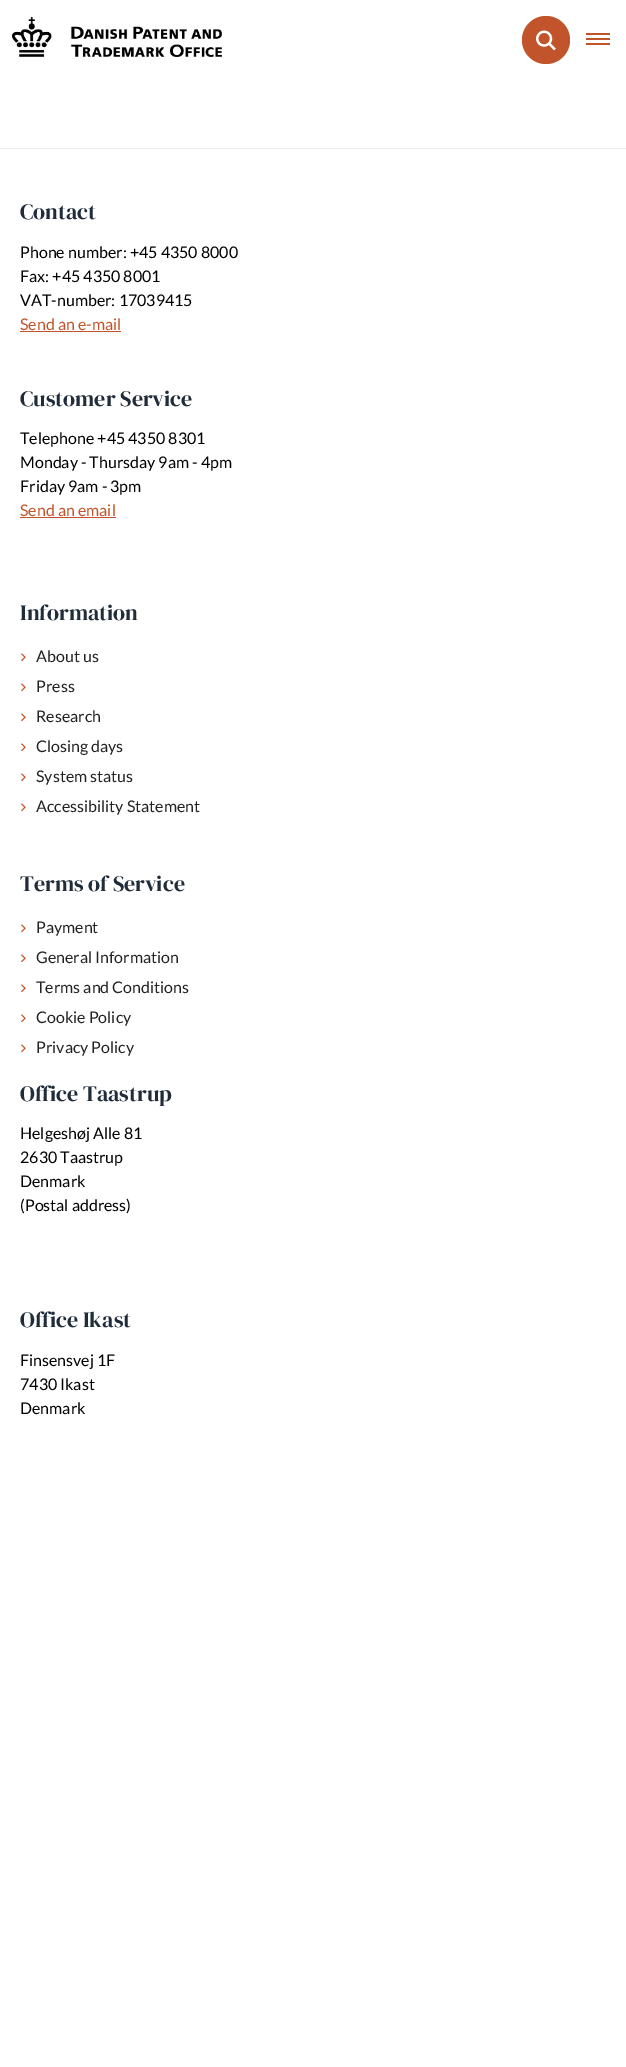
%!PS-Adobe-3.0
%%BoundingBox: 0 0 626 2067
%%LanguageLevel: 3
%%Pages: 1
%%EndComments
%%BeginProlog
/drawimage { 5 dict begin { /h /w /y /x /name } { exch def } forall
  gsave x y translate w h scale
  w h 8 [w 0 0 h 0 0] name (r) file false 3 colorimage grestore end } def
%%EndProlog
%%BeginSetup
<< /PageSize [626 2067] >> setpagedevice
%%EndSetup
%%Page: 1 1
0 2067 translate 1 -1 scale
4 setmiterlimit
1 setgray
0 0 626 2067 rectfill
(images/1.raw) 12 17 210 40 drawimage
0.757 0.329 0.165 setrgbcolor
newpath 546 40 24 0 360 arc closepath fill
(images/2.raw) 536 30 20 21 drawimage
586 38 24 2 rectfill
586 33 24 2 rectfill
586 43 24 2 rectfill
0.906 0.925 0.925 setrgbcolor
0 148 626 1 rectfill
0.757 0.329 0.165 setrgbcolor
20 331 101 1 rectfill
20 517 96 1 rectfill
(images/3.raw) 21 653 5 9 drawimage
(images/3.raw) 21 683 5 9 drawimage
(images/3.raw) 21 713 5 9 drawimage
(images/3.raw) 21 743 5 9 drawimage
(images/3.raw) 21 773 5 9 drawimage
(images/3.raw) 21 803 5 9 drawimage
(images/3.raw) 21 924 5 9 drawimage
(images/3.raw) 21 954 5 9 drawimage
(images/3.raw) 21 984 5 9 drawimage
(images/3.raw) 21 1014 5 9 drawimage
(images/3.raw) 21 1044 5 9 drawimage
/DMSerifDisplay-Regular [22 0 0 -22 0 0] selectfont
0.125 0.173 0.224 setrgbcolor
20 219 moveto (Contact) show
/Lato-Regular [16 0 0 -16 0 0] selectfont
0 setgray
20 258 moveto (Phone number: +45 4350 8000) show
20 282 moveto (Fax: +45 4350 8001) show
20 306 moveto (VAT-number: 17039415) show
0.757 0.329 0.165 setrgbcolor
20 330 moveto (Send an e-mail) show
/DMSerifDisplay-Regular [22 0 0 -22 0 0] selectfont
0.125 0.173 0.224 setrgbcolor
20 406 moveto (Customer Service) show
/Lato-Regular [16 0 0 -16 0 0] selectfont
0 setgray
20 444 moveto (Telephone +45 4350 8301) show
20 468 moveto (Monday - Thursday 9am - 4pm) show
20 492 moveto (Friday 9am - 3pm) show
0.757 0.329 0.165 setrgbcolor
20 516 moveto (Send an email) show
/DMSerifDisplay-Regular [22 0 0 -22 0 0] selectfont
0.125 0.173 0.224 setrgbcolor
20 620 moveto (Information) show
/Lato-Regular [16 0 0 -16 0 0] selectfont
0.133 setgray
36 662 moveto (About us) show
36 692 moveto (Press) show
36 722 moveto (Research) show
36 752 moveto (Closing days) show
36 782 moveto (System status) show
36 812 moveto (Accessibility Statement) show
/DMSerifDisplay-Regular [22 0 0 -22 0 0] selectfont
0.125 0.173 0.224 setrgbcolor
20 891 moveto (Terms of Service) show
/Lato-Regular [16 0 0 -16 0 0] selectfont
0.133 setgray
36 933 moveto (Payment) show
36 963 moveto (General Information) show
36 993 moveto (Terms and Conditions) show
36 1023 moveto (Cookie Policy) show
36 1053 moveto (Privacy Policy) show
/DMSerifDisplay-Regular [22 0 0 -22 0 0] selectfont
0.125 0.173 0.224 setrgbcolor
20 1101 moveto (Office Taastrup) show
/Lato-Regular [16 0 0 -16 0 0] selectfont
0 setgray
20 1139 moveto (Helgeshøj Alle 81) show
20 1163 moveto (2630 Taastrup) show
20 1187 moveto (Denmark) show
20 1211 moveto (\(Postal address\)) show
/DMSerifDisplay-Regular [22 0 0 -22 0 0] selectfont
0.125 0.173 0.224 setrgbcolor
20 1327 moveto (Office Ikast) show
/Lato-Regular [16 0 0 -16 0 0] selectfont
0 setgray
20 1366 moveto (Finsensvej 1F) show
20 1390 moveto (7430 Ikast) show
20 1414 moveto (Denmark) show
showpage
%%EOF
